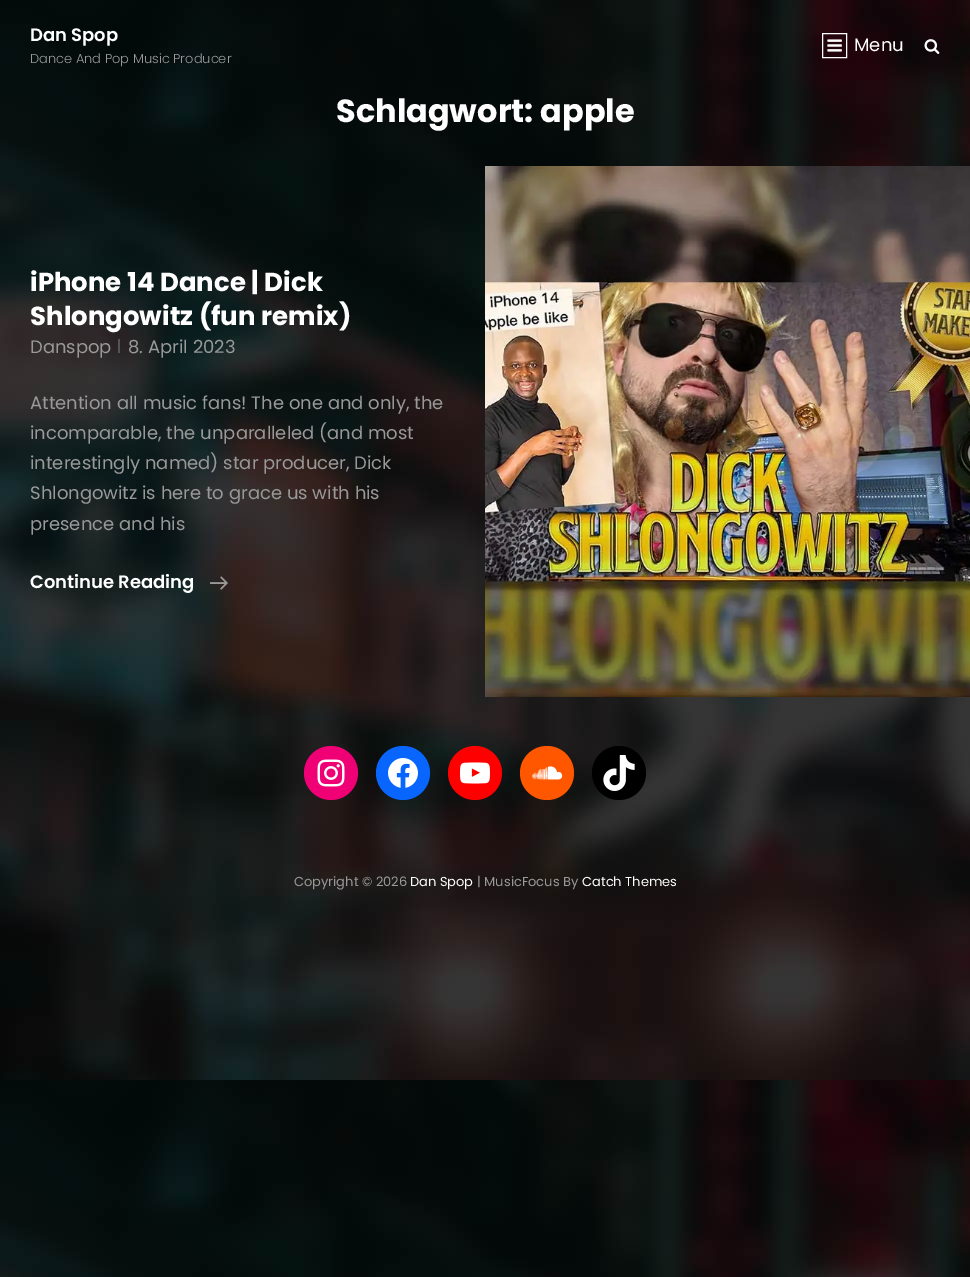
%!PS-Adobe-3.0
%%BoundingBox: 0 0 970 1277
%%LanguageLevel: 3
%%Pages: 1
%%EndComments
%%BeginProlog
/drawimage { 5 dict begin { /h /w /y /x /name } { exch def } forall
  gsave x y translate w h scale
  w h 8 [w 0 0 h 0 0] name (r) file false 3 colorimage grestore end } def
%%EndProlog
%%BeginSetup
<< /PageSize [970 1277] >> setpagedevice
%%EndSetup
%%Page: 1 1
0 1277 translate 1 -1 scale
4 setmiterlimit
1 setgray
0 0 970 1277 rectfill
(images/1.raw) 0 0 970 1277 drawimage
822.5 33.5 24 24 rectstroke
(images/2.raw) 827 39 15 13 drawimage
(images/3.raw) 924 39 16 15 drawimage
0.333 setgray
118 339 2 14 rectfill
(images/4.raw) 210 576 18 14 drawimage
(images/5.raw) 485 166 485 531 drawimage
0.941 0 0.459 setrgbcolor
newpath 331 773 27 0 360 arc closepath fill
(images/6.raw) 317 759 28 28 drawimage
0.031 0.4 1 setrgbcolor
newpath 403 773 27 0 360 arc closepath fill
(images/7.raw) 388 758 30 30 drawimage
1 0 0 setrgbcolor
newpath 475 773 27 0 360 arc closepath fill
(images/8.raw) 460 762 30 22 drawimage
1 0.337 0 setrgbcolor
newpath 547 773 27 0 360 arc closepath fill
(images/9.raw) 532 766 31 14 drawimage
0 setgray
newpath 619 773 27 0 360 arc closepath fill
(images/10.raw) 603 755 32 36 drawimage
/Poppins-SemiBold [18 0 0 -18 0 0] selectfont
1 setgray
30 41 moveto (Dan Spop) show
/Poppins-Light [13 0 0 -13 0 0] selectfont
0.6 setgray
30 63 moveto (Dance And Pop Music Producer) show
/Poppins-Regular [18 0 0 -18 0 0] selectfont
1 setgray
854 51 moveto (Menu) show
/Poppins-Bold [32 0 0 -32 0 0] selectfont
336 122 moveto (Schlagwort: apple) show
/Poppins-Bold [26 0 0 -26 0 0] selectfont
30 291 moveto (iPhone 14 Dance | Dick) show
30 325 moveto (Shlongowitz \(fun remix\)) show
/Poppins-Regular [18 0 0 -18 0 0] selectfont
0.6 setgray
30 353 moveto (Danspop) show
128 353 moveto (8. April 2023) show
30 409 moveto (Attention all music fans! The one and only, the) show
30 439 moveto (incomparable, the unparalleled \(and most) show
30 469 moveto (interestingly named\) star producer, Dick) show
30 499 moveto (Shlongowitz is here to grace us with his) show
30 530 moveto (presence and his) show
/Poppins-SemiBold [18 0 0 -18 0 0] selectfont
1 setgray
30 588 moveto (Continue Reading) show
/Poppins-Regular [13 0 0 -13 0 0] selectfont
0.6 setgray
294 886 moveto (Copyright © 2026) show
1 setgray
410 886 moveto (Dan Spop) show
0.6 setgray
477 886 moveto (| MusicFocus By) show
1 setgray
582 886 moveto (Catch Themes) show
showpage
%%EOF
